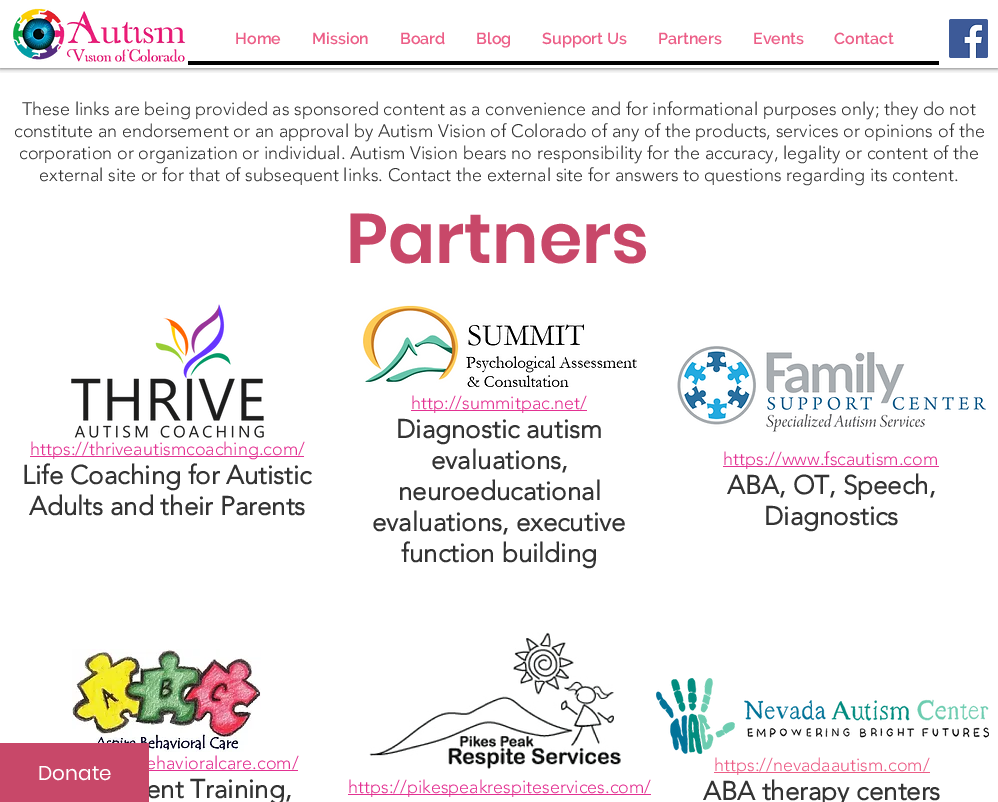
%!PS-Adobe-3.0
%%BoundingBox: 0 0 998 802
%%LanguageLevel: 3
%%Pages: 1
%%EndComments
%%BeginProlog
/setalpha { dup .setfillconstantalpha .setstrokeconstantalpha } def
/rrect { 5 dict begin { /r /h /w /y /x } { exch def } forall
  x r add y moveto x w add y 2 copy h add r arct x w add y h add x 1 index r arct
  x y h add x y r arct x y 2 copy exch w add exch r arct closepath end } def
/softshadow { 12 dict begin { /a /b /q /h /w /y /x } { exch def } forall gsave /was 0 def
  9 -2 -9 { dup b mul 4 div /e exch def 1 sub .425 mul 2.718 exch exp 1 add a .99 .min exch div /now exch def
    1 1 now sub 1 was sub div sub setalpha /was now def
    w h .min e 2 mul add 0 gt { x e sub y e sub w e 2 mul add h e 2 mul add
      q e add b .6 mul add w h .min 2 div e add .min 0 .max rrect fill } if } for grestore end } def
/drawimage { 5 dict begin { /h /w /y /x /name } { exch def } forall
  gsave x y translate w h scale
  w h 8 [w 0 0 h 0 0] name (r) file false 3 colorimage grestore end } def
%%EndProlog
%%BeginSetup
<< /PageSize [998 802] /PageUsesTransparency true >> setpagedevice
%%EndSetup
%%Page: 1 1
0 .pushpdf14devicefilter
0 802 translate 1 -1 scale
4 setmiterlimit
1 setgray
0 0 998 802 rectfill
gsave
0 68 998 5 rectclip
0 setgray
0 0 998 68 0 2.5 0.7 softshadow
grestore
(images/1.raw) 13 8 173 54 drawimage
0 setgray
188 61 751 4 rectfill
(images/2.raw) 949 19 39 39 drawimage
(images/3.raw) 71 304 193 134 drawimage
0.89 0.196 0.573 setrgbcolor
30 456 274 1 rectfill
(images/4.raw) 363 305 274 82 drawimage
411 410 176 1 rectfill
(images/5.raw) 677 346 309 86 drawimage
723 466 216 1 rectfill
(images/6.raw) 72 649 189 103 drawimage
149 770 149 1 rectfill
(images/7.raw) 369 632 252 137 drawimage
348 794 303 1 rectfill
(images/8.raw) 656 678 333 76 drawimage
0.925 0.369 0.529 setrgbcolor
714 772 216 1 rectfill
/Raleway-SemiBold [16 0 0 -16 0 0] selectfont
235 44 moveto (Home) show
312 44 moveto (Mission) show
400 44 moveto (Board) show
476 44 moveto (Blog) show
542 44 moveto (Support Us) show
658 44 moveto (Partners) show
753 44 moveto (Events) show
834 44 moveto (Contact) show
/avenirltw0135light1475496-Light [18 0 0 -18 0 0] selectfont
0.2 setgray
22 115 moveto (These links are being provided as sponsored content as a convenience and for informational purposes only; they do not) show
14 137 moveto (constitute an endorsement or an approval by Autism Vision of Colorado of any of the products, services or opinions of the) show
19 159 moveto (corporation or organization or individual. Autism Vision bears no responsibility for the accuracy, legality or content of the) show
39 181 moveto (external site or for that of subsequent links. Contact the external site for answers to questions regarding its content.) show
/Poppins-SemiBold [70 0 0 -70 0 0] selectfont
0.784 0.282 0.412 setrgbcolor
346 263 moveto (Partners) show
/avenirltw0135light1475496-Light [18 0 0 -18 0 0] selectfont
0.89 0.196 0.573 setrgbcolor
30 455 moveto (https://thriveautismcoaching.com/) show
/avenirltw0135light1475496-Bold [26 0 0 -26 0 0] selectfont
0.2 setgray
22 484 moveto (Life Coaching for Autistic) show
29 515 moveto (Adults and their Parents) show
/avenirltw0135light1475496-Light [18 0 0 -18 0 0] selectfont
0.89 0.196 0.573 setrgbcolor
411 409 moveto (http://summitpac.net/) show
/avenirltw0135light1475496-Bold [26 0 0 -26 0 0] selectfont
0.2 setgray
396 438 moveto (Diagnostic autism) show
431 469 moveto (evaluations,) show
398 500 moveto (neuroeducational) show
372 531 moveto (evaluations, executive) show
401 562 moveto (function building) show
/avenirltw0135light1475496-Light [18 0 0 -18 0 0] selectfont
0.89 0.196 0.573 setrgbcolor
723 465 moveto (https://www.fscautism.com) show
/avenirltw0135light1475496-Bold [26 0 0 -26 0 0] selectfont
0.2 setgray
727 494 moveto (ABA, OT, Speech,) show
764 525 moveto (Diagnostics) show
/avenirltw0135light1475496-Light [18 0 0 -18 0 0] selectfont
0.89 0.196 0.573 setrgbcolor
146 769 moveto (ehavioralcare.com/) show
/avenirltw0135light1475496-Bold [26 0 0 -26 0 0] selectfont
0.2 setgray
146 798 moveto (ent Training,) show
/avenirltw0135light1475496-Light [18 0 0 -18 0 0] selectfont
0.89 0.196 0.573 setrgbcolor
348 793 moveto (https://pikespeakrespiteservices.com/) show
0.925 0.369 0.529 setrgbcolor
714 771 moveto (https://nevadaautism.com/) show
/avenirltw0135light1475496-Bold [26 0 0 -26 0 0] selectfont
0.2 setgray
703 800 moveto (ABA therapy centers) show
0.784 0.282 0.412 setrgbcolor
0 743 149 59 rectfill
/Poppins-Regular [20 0 0 -20 0 0] selectfont
1 setgray
38 780 moveto (Donate) show
.poppdf14devicefilter showpage
%%EOF
